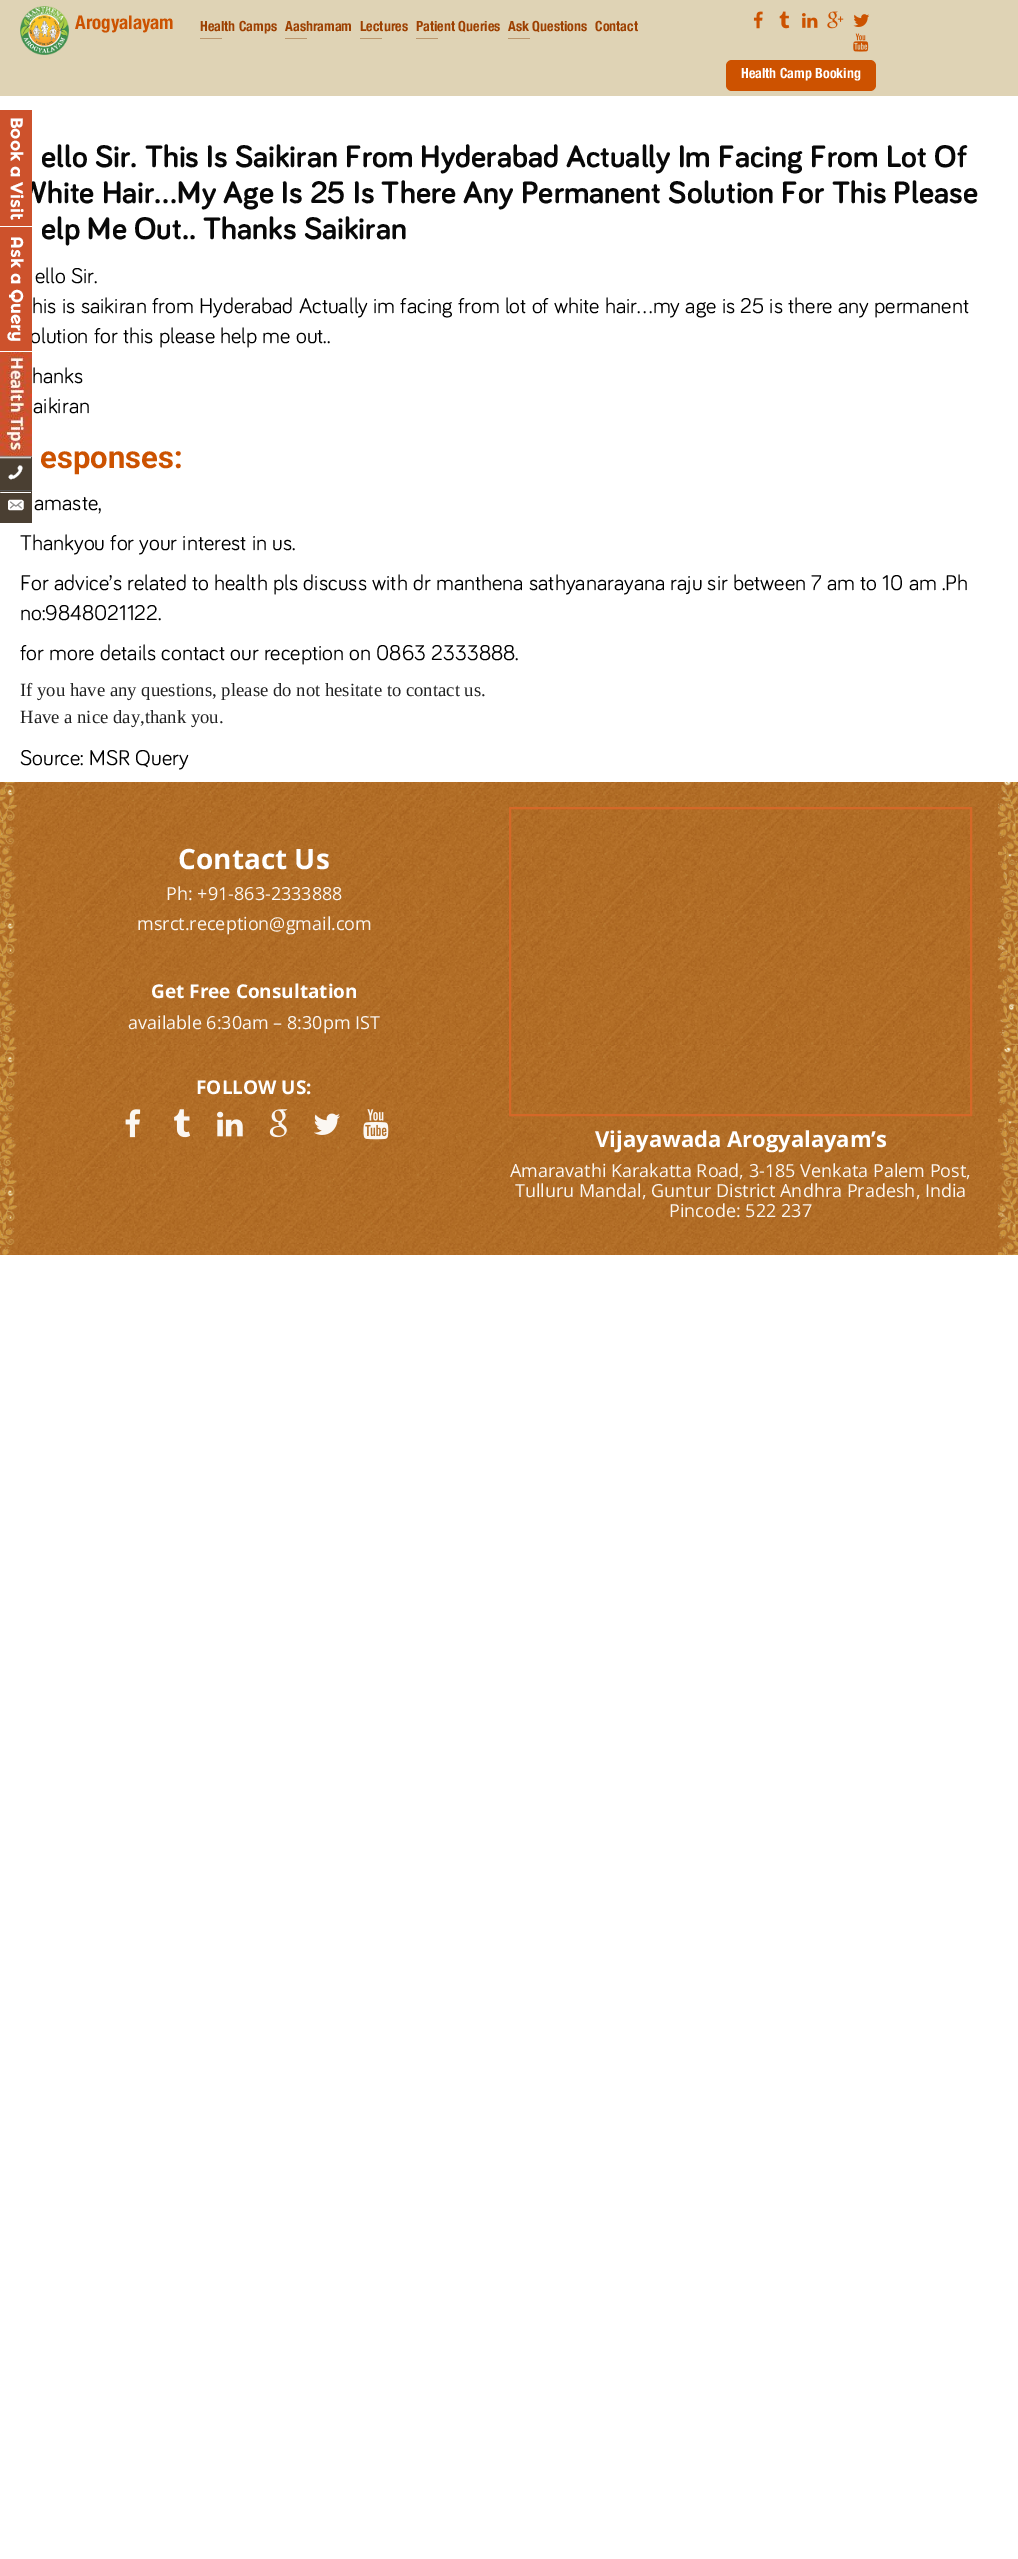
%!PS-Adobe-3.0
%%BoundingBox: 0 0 1018 2559
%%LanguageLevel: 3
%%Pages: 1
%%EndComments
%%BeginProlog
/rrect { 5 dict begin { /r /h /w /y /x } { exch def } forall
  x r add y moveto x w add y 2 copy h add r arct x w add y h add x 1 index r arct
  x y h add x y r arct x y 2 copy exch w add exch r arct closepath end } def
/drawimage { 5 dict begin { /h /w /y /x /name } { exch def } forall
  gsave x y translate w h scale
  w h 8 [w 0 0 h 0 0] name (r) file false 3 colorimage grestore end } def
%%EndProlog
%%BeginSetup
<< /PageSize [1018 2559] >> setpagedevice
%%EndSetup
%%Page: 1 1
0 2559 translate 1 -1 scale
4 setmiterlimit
1 setgray
0 0 1018 2559 rectfill
0.875 0.827 0.71 setrgbcolor
0 0 1018 96 rectfill
(images/1.raw) 20 6 49 49 drawimage
0.733 0.588 0.424 setrgbcolor
200 38 22 1 rectfill
285 38 22 1 rectfill
360 38 22 1 rectfill
416 38 22 1 rectfill
508 38 22 1 rectfill
(images/2.raw) 753 11 10 18 drawimage
(images/3.raw) 779 11 11 18 drawimage
(images/4.raw) 802 13 16 15 drawimage
(images/5.raw) 827 11 17 18 drawimage
(images/6.raw) 853 14 17 13 drawimage
(images/7.raw) 853 33 16 19 drawimage
0.804 0.322 0 setrgbcolor
726 60 150 31 6 rrect fill
(images/10.raw) 0 352 32 105 drawimage
0.29 0.247 0.196 setrgbcolor
0 457 32 33 rectfill
(images/11.raw) 0 457 31 23 drawimage
0 491 32 32 rectfill
0.333 setgray
0 490 32 1 rectfill
(images/12.raw) 0 492 31 19 drawimage
(images/13.raw) 0 782 1018 473 drawimage
(images/14.raw) 0 782 18 473 drawimage
(images/15.raw) 125 1109 16 29 drawimage
(images/16.raw) 174 1109 17 29 drawimage
(images/17.raw) 217 1111 26 26 drawimage
(images/18.raw) 269 1109 19 29 drawimage
(images/19.raw) 314 1113 26 22 drawimage
(images/20.raw) 363 1109 26 31 drawimage
0.835 0.408 0.157 setrgbcolor
2 setlinewidth
510 808 461 307 rectstroke
(images/21.raw) 998 782 20 473 drawimage
/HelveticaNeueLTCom-Bold [19 0 0 -19 0 0] selectfont
0.8 0.322 0 setrgbcolor
75 29 moveto (Arogyalayam) show
/HelveticaNeueLTCom-Bold [14 0 0 -14 0 0] selectfont
0.616 0.251 0.004 setrgbcolor
200 31 moveto (Health Camps) show
285 31 moveto (Aashramam) show
360 31 moveto (Lectures) show
416 31 moveto (Patient Queries) show
508 31 moveto (Ask Questions) show
595 31 moveto (Contact) show
1 setgray
741 78 moveto (Health Camp Booking) show
/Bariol-Bold [32 0 0 -32 0 0] selectfont
0.031 setgray
41 167 moveto (ello Sir. This Is Saikiran From Hyderabad Actually Im Facing From Lot Of) show
20 203 moveto (White Hair…My Age Is 25 Is There Any Permanent Solution For This Please) show
(images/8.raw) 0 110 32 117 drawimage
41 239 moveto (elp Me Out.. Thanks Saikiran) show
/Bariol-Regular [22 0 0 -22 0 0] selectfont
0 setgray
35 283 moveto (ello Sir.) show
32 313 moveto (his is saikiran from Hyderabad Actually im facing from lot of white hair…my age is 25 is there any permanent) show
30 343 moveto (olution for this please help me out..) show
(images/9.raw) 0 227 32 124 drawimage
32 383 moveto (hanks) show
33 413 moveto (aikiran) show
/Roboto-Bold [31 0 0 -31 0 0] selectfont
0.8 0.322 0 setrgbcolor
40 468 moveto (esponses:) show
/Bariol-Regular [22 0 0 -22 0 0] selectfont
0 setgray
34 510 moveto (amaste,) show
20 550 moveto (Thankyou for your interest in us.) show
20 590 moveto (For advice’s related to health pls discuss with dr manthena sathyanarayana raju sir between 7 am to 10 am .Ph) show
20 620 moveto (no:9848021122.) show
20 660 moveto (for more details contact our reception on 0863 2333888.) show
/LiberationSerif-Regular [18.7 0 0 -18.7 0 0] selectfont
0.133 setgray
20 696 moveto (If you have any questions, please do not hesitate to contact us.) show
20 723 moveto (Have a nice day,thank you.) show
/Bariol-Regular [22 0 0 -22 0 0] selectfont
0 setgray
20 765 moveto (Source: MSR Query) show
/OpenSans-Bold [28 0 0 -28 0 0] selectfont
1 setgray
178 869 moveto (Contact Us) show
/OpenSans-Regular [18 0 0 -18 0 0] selectfont
0.984 0.969 0.949 setrgbcolor
166 900 moveto (Ph: +91-863-2333888) show
137 930 moveto (msrct.reception@gmail.com) show
/OpenSans-Bold [19 0 0 -19 0 0] selectfont
1 setgray
151 998 moveto (Get Free Consultation) show
/OpenSans-Regular [18 0 0 -18 0 0] selectfont
0.984 0.969 0.949 setrgbcolor
128 1029 moveto (available 6:30am – 8:30pm IST) show
/OpenSans-Bold [19 0 0 -19 0 0] selectfont
1 setgray
196 1094 moveto (FOLLOW US:) show
/OpenSans-Bold [22 0 0 -22 0 0] selectfont
595 1147 moveto (Vijayawada Arogyalayam’s) show
/OpenSans-Regular [18 0 0 -18 0 0] selectfont
0.984 0.969 0.949 setrgbcolor
510 1177 moveto (Amaravathi Karakatta Road, 3-185 Venkata Palem Post,) show
515 1197 moveto (Tulluru Mandal, Guntur District Andhra Pradesh, India) show
669 1217 moveto (Pincode: 522 237) show
showpage
%%EOF
